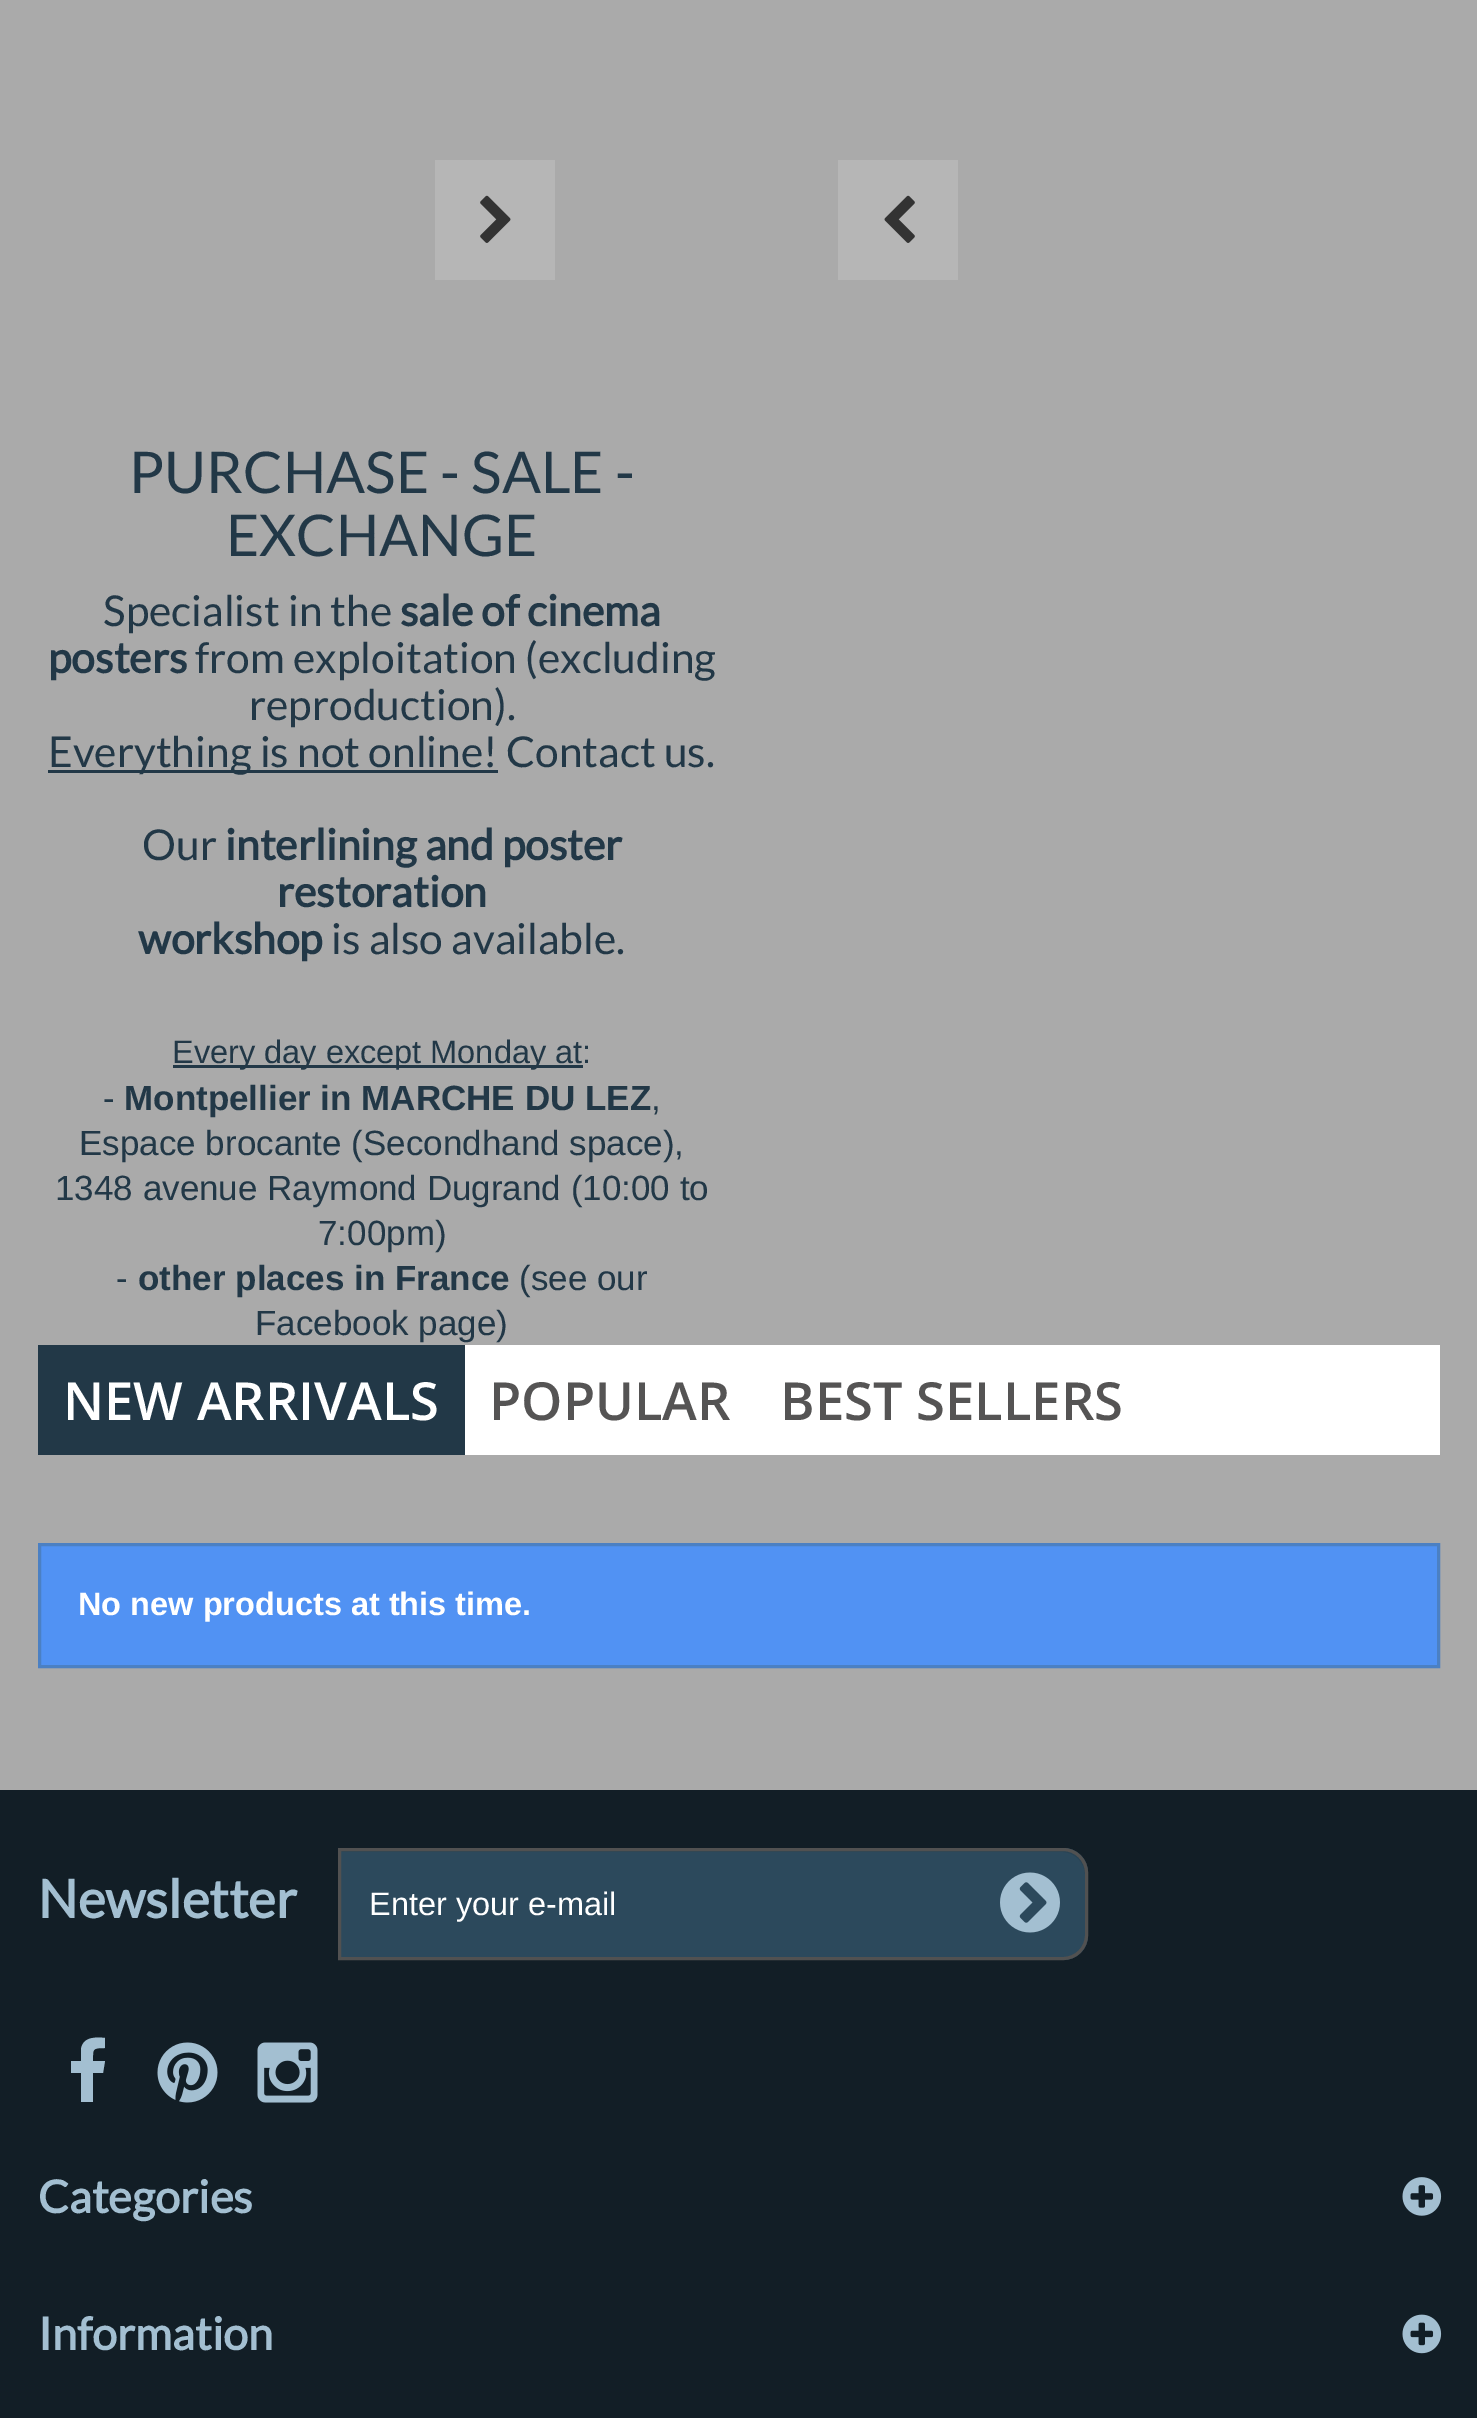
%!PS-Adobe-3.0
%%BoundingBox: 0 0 1477 2418
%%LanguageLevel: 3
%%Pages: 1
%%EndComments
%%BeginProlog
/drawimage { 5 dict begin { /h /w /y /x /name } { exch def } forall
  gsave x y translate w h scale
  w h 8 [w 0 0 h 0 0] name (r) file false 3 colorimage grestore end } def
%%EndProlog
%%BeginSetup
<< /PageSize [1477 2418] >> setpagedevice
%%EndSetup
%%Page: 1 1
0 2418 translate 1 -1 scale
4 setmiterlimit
0.667 setgray
0 0 1477 2418 rectfill
0.714 setgray
435 160 120 120 rectfill
(images/1.raw) 480 195 31 48 drawimage
838 160 120 120 rectfill
(images/2.raw) 884 195 31 48 drawimage
0.133 0.22 0.278 setrgbcolor
48 770 450 3 rectfill
173 1065 410 3 rectfill
1 setgray
465 1345 975 110 rectfill
0.133 0.22 0.278 setrgbcolor
38 1345 427 110 rectfill
0.318 0.573 0.953 setrgbcolor
newpath 39.5 1544.5 moveto 1438.5 1544.5 lineto 1438.5 1666.5 lineto 39.5 1666.5 lineto closepath gsave fill grestore
0.294 0.502 0.765 setrgbcolor
3 setlinewidth
stroke
0.071 0.118 0.149 setrgbcolor
0 1790 1477 628 rectfill
0.173 0.286 0.361 setrgbcolor
newpath 338 1848 moveto 1063 1848 lineto 1077 1848 1088 1859 1088 1873 curveto 1088 1935 lineto 1088 1949 1077 1960 1063 1960 curveto 338 1960 lineto closepath fill
0.161 0.267 0.333 setrgbcolor
newpath 340 1852 moveto 1062 1852 lineto 1075 1852 1085 1863 1085 1875 curveto 1085 1873 lineto 1085 1860 1075 1850 1062 1850 curveto 340 1850 lineto closepath fill
0.318 setgray
newpath 339.5 1849.5 moveto 1063 1849.5 lineto 1076 1849.5 1086.5 1860 1086.5 1873 curveto 1086.5 1935 lineto 1086.5 1948 1076 1958.5 1063 1958.5 curveto 339.5 1958.5 lineto closepath stroke
(images/3.raw) 1000 1872 60 61 drawimage
0.639 0.749 0.82 setrgbcolor
newpath 105 2038 moveto 105 2048 lineto 92 2048 93 2049 93 2061 curveto 105 2061 lineto 103 2073 lineto 93 2073 lineto 93 2102 lineto 81 2102 lineto 81 2073 lineto 71 2073 lineto 71 2061 lineto 81 2061 lineto 81 2049 lineto 83 2037 95 2037 105 2038 curveto closepath fill
(images/4.raw) 157 2042 61 61 drawimage
(images/5.raw) 257 2042 61 61 drawimage
(images/6.raw) 1402 2177 40 39 drawimage
(images/7.raw) 1402 2314 40 40 drawimage
/Lato-Regular [57.5 0 0 -57.5 0 0] selectfont
0.133 0.22 0.278 setrgbcolor
129 493 moveto (PURCHASE - SALE -) show
226 556 moveto (EXCHANGE) show
/Lato-Regular [42.5 0 0 -42.5 0 0] selectfont
103 626 moveto (Specialist in the) show
/Lato-Bold [42.5 0 0 -42.5 0 0] selectfont
400 626 moveto (sale of cinema) show
48 673 moveto (posters) show
/Lato-Regular [42.5 0 0 -42.5 0 0] selectfont
195 673 moveto (from exploitation \(excluding) show
249 720 moveto (reproduction\).) show
48 767 moveto (Everything is not online! Contact us.) show
142 860 moveto (Our) show
/Lato-Bold [42.5 0 0 -42.5 0 0] selectfont
225 860 moveto (interlining and poster) show
277 907 moveto (restoration) show
138 954 moveto (workshop) show
/Lato-Regular [42.5 0 0 -42.5 0 0] selectfont
331 954 moveto (is also available.) show
/LiberationSans-Regular [32.5 0 0 -32.5 0 0] selectfont
172 1063 moveto (Every day except Monday at:) show
/LiberationSans-Regular [35 0 0 -35 0 0] selectfont
103 1110 moveto (-) show
/LiberationSans-Bold [35 0 0 -35 0 0] selectfont
124 1110 moveto (Montpellier in MARCHE DU LEZ) show
/LiberationSans-Regular [35 0 0 -35 0 0] selectfont
651 1110 moveto (,) show
79 1155 moveto (Espace brocante \(Secondhand space\),) show
55 1200 moveto (1348 avenue Raymond Dugrand \(10:00 to) show
318 1245 moveto (7:00pm\)) show
116 1290 moveto (-) show
/LiberationSans-Bold [35 0 0 -35 0 0] selectfont
138 1290 moveto (other places in France) show
/LiberationSans-Regular [35 0 0 -35 0 0] selectfont
519 1290 moveto (\(see our) show
255 1335 moveto (Facebook page\)) show
/OpenSans-SemiBold [52.5 0 0 -52.5 0 0] selectfont
1 setgray
63 1420 moveto (NEW ARRIVALS) show
0.333 0.329 0.329 setrgbcolor
489 1420 moveto (POPULAR) show
780 1420 moveto (BEST SELLERS) show
/LiberationSans-Bold [32.5 0 0 -32.5 0 0] selectfont
1 setgray
78 1615 moveto (No new products at this time.) show
/Lato-Bold [52.5 0 0 -52.5 0 0] selectfont
0.639 0.749 0.82 setrgbcolor
38 1918 moveto (Newsletter) show
/LiberationSans-Regular [32.5 0 0 -32.5 0 0] selectfont
1 setgray
369 1915 moveto (Enter your e-mail) show
/Lato-Bold [45 0 0 -45 0 0] selectfont
0.639 0.749 0.82 setrgbcolor
38 2213 moveto (Categories) show
38 2350 moveto (Information) show
showpage
%%EOF
